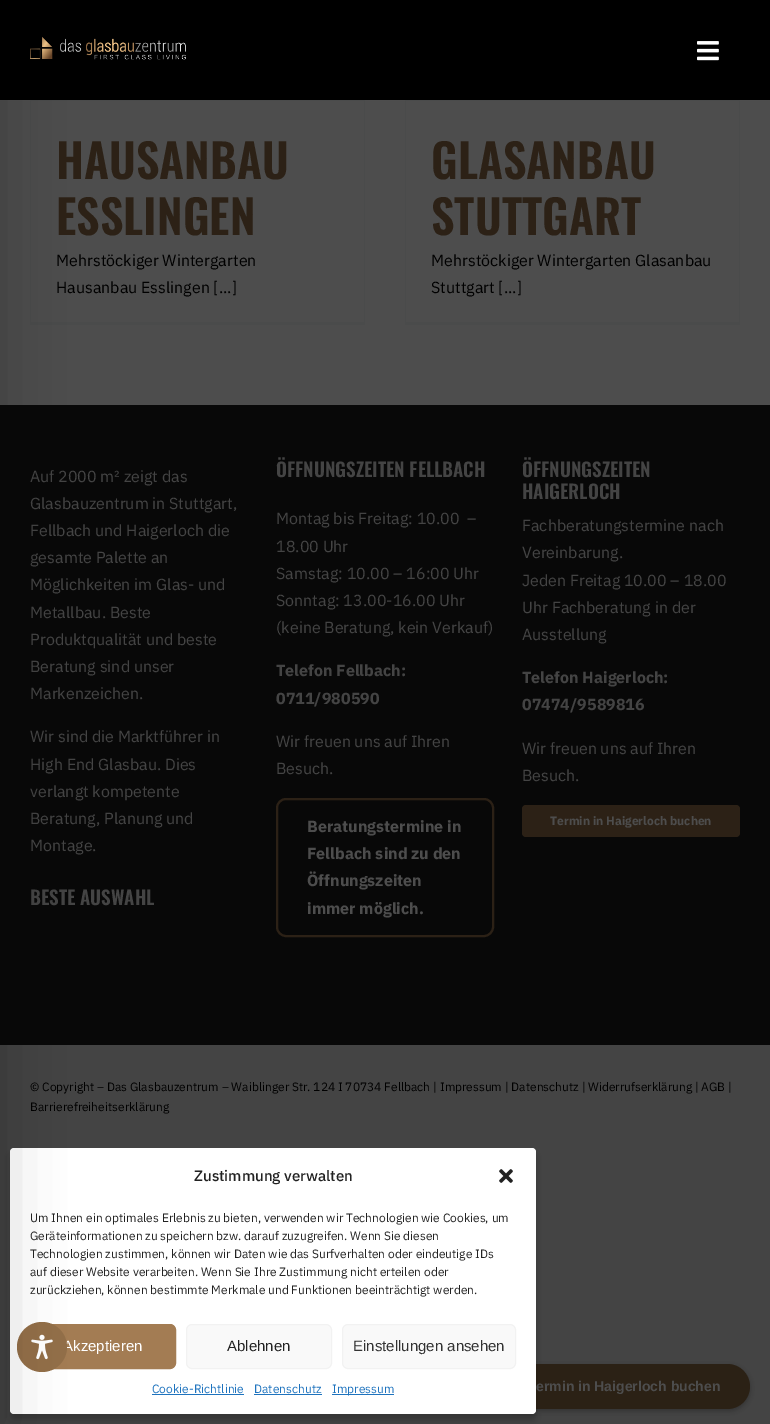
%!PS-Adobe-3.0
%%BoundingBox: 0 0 770 1424
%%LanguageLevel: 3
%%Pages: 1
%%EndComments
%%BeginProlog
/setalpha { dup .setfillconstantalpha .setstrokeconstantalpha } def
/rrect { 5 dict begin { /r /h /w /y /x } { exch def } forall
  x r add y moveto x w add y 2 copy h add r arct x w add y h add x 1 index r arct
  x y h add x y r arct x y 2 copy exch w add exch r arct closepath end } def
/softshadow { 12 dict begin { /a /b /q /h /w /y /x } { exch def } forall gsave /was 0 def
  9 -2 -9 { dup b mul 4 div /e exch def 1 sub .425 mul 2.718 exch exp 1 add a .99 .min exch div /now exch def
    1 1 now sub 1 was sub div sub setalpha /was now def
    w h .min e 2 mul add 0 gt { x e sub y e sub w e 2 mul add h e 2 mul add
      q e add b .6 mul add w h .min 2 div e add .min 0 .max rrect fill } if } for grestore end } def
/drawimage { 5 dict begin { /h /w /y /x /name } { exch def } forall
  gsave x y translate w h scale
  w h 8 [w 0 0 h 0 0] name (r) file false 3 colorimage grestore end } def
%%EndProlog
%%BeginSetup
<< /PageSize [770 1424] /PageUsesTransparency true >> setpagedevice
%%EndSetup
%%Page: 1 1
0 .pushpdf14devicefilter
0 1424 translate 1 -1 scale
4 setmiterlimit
0.267 setgray
0 0 770 1424 rectfill
0.302 setgray
0 100 770 305 rectfill
0 setgray
0 0 770 100 rectfill
(images/2.raw) 30 37 156 23 drawimage
(images/3.raw) 697 41 22 20 drawimage
0.29 0.294 0.294 setrgbcolor
30 100 335 1 rectfill
364 100 1 225 rectfill
30 322 335 3 rectfill
30 100 1 225 rectfill
405 100 335 1 rectfill
739 100 1 225 rectfill
405 322 335 3 rectfill
405 100 1 225 rectfill
0.031 setgray
0 405 770 640 rectfill
0.173 0.129 0.086 setrgbcolor
2 setlinewidth
277 799 216 137 9 rrect stroke
522 805 218 32 4 rrect fill
0 setgray
497 1366 253 45 22.5 2.5 0.25 softshadow
0.169 0.129 0.082 setrgbcolor
497 1364 253 45 22.5 rrect fill
0 setgray
10 1154 526 266 4 3 0.23 softshadow
1 setgray
10 1148 526 266 4 rrect fill
(images/4.raw) 499 1169 14 14 drawimage
0.639 0.486 0.325 setrgbcolor
30.5 1324.5 145 44 5.5 rrect gsave fill grestore
1 setlinewidth
stroke
0.976 setgray
186.5 1324.5 145 44 5.5 rrect gsave fill grestore
0.949 setgray
stroke
0.976 setgray
342.5 1324.5 173 44 5.5 rrect gsave fill grestore
0.949 setgray
stroke
0.118 0.451 0.745 setrgbcolor
152 1394 92 1 rectfill
254 1394 68 1 rectfill
332 1394 62 1 rectfill
/Oswald-SemiBold [46.5 0 0 -46.5 0 0] selectfont
0.173 0.129 0.086 setrgbcolor
56 179 moveto (HAUSANBAU) show
56 235 moveto (ESSLINGEN) show
/IBMPlexSans-Regular [16 0 0 -16 0 0] selectfont
0 setgray
56 266 moveto (Mehrstöckiger Wintergarten) show
56 293 moveto (Hausanbau Esslingen [...]) show
/Oswald-SemiBold [46.5 0 0 -46.5 0 0] selectfont
0.173 0.129 0.086 setrgbcolor
431 179 moveto (GLASANBAU) show
431 235 moveto (STUTTGART) show
/IBMPlexSans-Regular [16 0 0 -16 0 0] selectfont
0 setgray
431 266 moveto (Mehrstöckiger Wintergarten Glasanbau) show
431 293 moveto (Stuttgart [...]) show
0.267 setgray
30 482 moveto (Auf 2000 m² zeigt das) show
30 509 moveto (Glasbauzentrum in Stuttgart,) show
30 536 moveto (Fellbach und Haigerloch die) show
30 563 moveto (gesamte Palette an) show
30 590 moveto (Möglichkeiten im Glas- und) show
30 618 moveto (Metallbau. Beste) show
30 645 moveto (Produktqualität und beste) show
30 672 moveto (Beratung sind unser) show
30 699 moveto (Markenzeichen.) show
30 742 moveto (Wir sind die Marktführer in) show
30 770 moveto (High End Glasbau. Dies) show
30 797 moveto (verlangt kompetente) show
30 824 moveto (Beratung, Planung und) show
30 851 moveto (Montage.) show
/Oswald-SemiBold [19 0 0 -19 0 0] selectfont
30 905 moveto (BESTE AUSWAHL) show
276 477 moveto (ÖFFNUNGSZEITEN FELLBACH) show
/IBMPlexSans-Regular [16 0 0 -16 0 0] selectfont
276 524 moveto (Montag bis Freitag: 10.00  –) show
276 552 moveto (18.00 Uhr) show
276 579 moveto (Samstag: 10.00 – 16:00 Uhr) show
276 606 moveto (Sonntag: 13.00-16.00 Uhr) show
276 633 moveto (\(keine Beratung, kein Verkauf\)) show
/IBMPlexSans-Bold [16 0 0 -16 0 0] selectfont
276 676 moveto (Telefon Fellbach:) show
276 704 moveto (0711/980590) show
/IBMPlexSans-Regular [16 0 0 -16 0 0] selectfont
276 747 moveto (Wir freuen uns auf Ihren) show
276 774 moveto (Besuch.) show
/IBMPlexSans-Bold [16 0 0 -16 0 0] selectfont
0.302 setgray
307 832 moveto (Beratungstermine in) show
307 859 moveto (Fellbach sind zu den) show
307 886 moveto (Öffnungszeiten) show
307 914 moveto (immer möglich.) show
/Oswald-SemiBold [19 0 0 -19 0 0] selectfont
0.267 setgray
522 477 moveto (ÖFFNUNGSZEITEN) show
522 499 moveto (HAIGERLOCH) show
/IBMPlexSans-Regular [16 0 0 -16 0 0] selectfont
522 531 moveto (Fachberatungstermine nach) show
522 558 moveto (Vereinbarung.) show
522 586 moveto (Jeden Freitag 10.00 – 18.00) show
522 613 moveto (Uhr Fachberatung in der) show
522 640 moveto (Ausstellung) show
/IBMPlexSans-Bold [16 0 0 -16 0 0] selectfont
522 683 moveto (Telefon Haigerloch:) show
522 710 moveto (07474/9589816) show
/IBMPlexSans-Regular [16 0 0 -16 0 0] selectfont
522 754 moveto (Wir freuen uns auf Ihren) show
522 781 moveto (Besuch.) show
/IBMPlexSans-Bold [12 0 0 -12 0 0] selectfont
0.302 setgray
550 825 moveto (Termin in Haigerloch buchen) show
/IBMPlexSans-Regular [12 0 0 -12 0 0] selectfont
0 setgray
30 1091 moveto (© Copyright – Das Glasbauzentrum – Waiblinger Str. 124 I 70734 Fellbach | Impressum | Datenschutz | Widerrufserklärung | AGB |) show
30 1111 moveto (Barrierefreiheitserklärung) show
/IBMPlexSans-Medium [15 0 0 -15 0 0] selectfont
0.133 setgray
194 1181 moveto (Zustimmung verwalten) show
/IBMPlexSans-Regular [12 0 0 -12 0 0] selectfont
30 1222 moveto (Um Ihnen ein optimales Erlebnis zu bieten, verwenden wir Technologien wie Cookies, um) show
30 1240 moveto (Geräteinformationen zu speichern bzw. darauf zuzugreifen. Wenn Sie diesen) show
30 1258 moveto (Technologien zustimmen, können wir Daten wie das Surfverhalten oder eindeutige IDs) show
30 1276 moveto (auf dieser Website verarbeiten. Wenn Sie Ihre Zustimmung nicht erteilen oder) show
30 1294 moveto (zurückziehen, können bestimmte Merkmale und Funktionen beeinträchtigt werden.) show
/LiberationSans-Regular [15 0 0 -15 0 0] selectfont
1 setgray
63 1351 moveto (Akzeptieren) show
0.573 0.435 0.286 setrgbcolor
newpath 42 1347 25 0 360 arc closepath fill
(images/1.raw) 31 1334 22 26 drawimage
0 setgray
-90 10 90 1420 0 30 0.2 softshadow
0.133 setgray
227 1351 moveto (Ablehnen) show
0.2 setgray
353 1351 moveto (Einstellungen ansehen) show
/IBMPlexSans-Regular [12 0 0 -12 0 0] selectfont
0.118 0.451 0.745 setrgbcolor
152 1393 moveto (Cookie-Richtlinie) show
254 1393 moveto (Datenschutz) show
332 1393 moveto (Impressum) show
/LiberationSans-Bold [14 0 0 -14 0 0] selectfont
0.302 setgray
536 1391 moveto (ermin in Haigerloch buchen) show
.poppdf14devicefilter showpage
%%EOF
